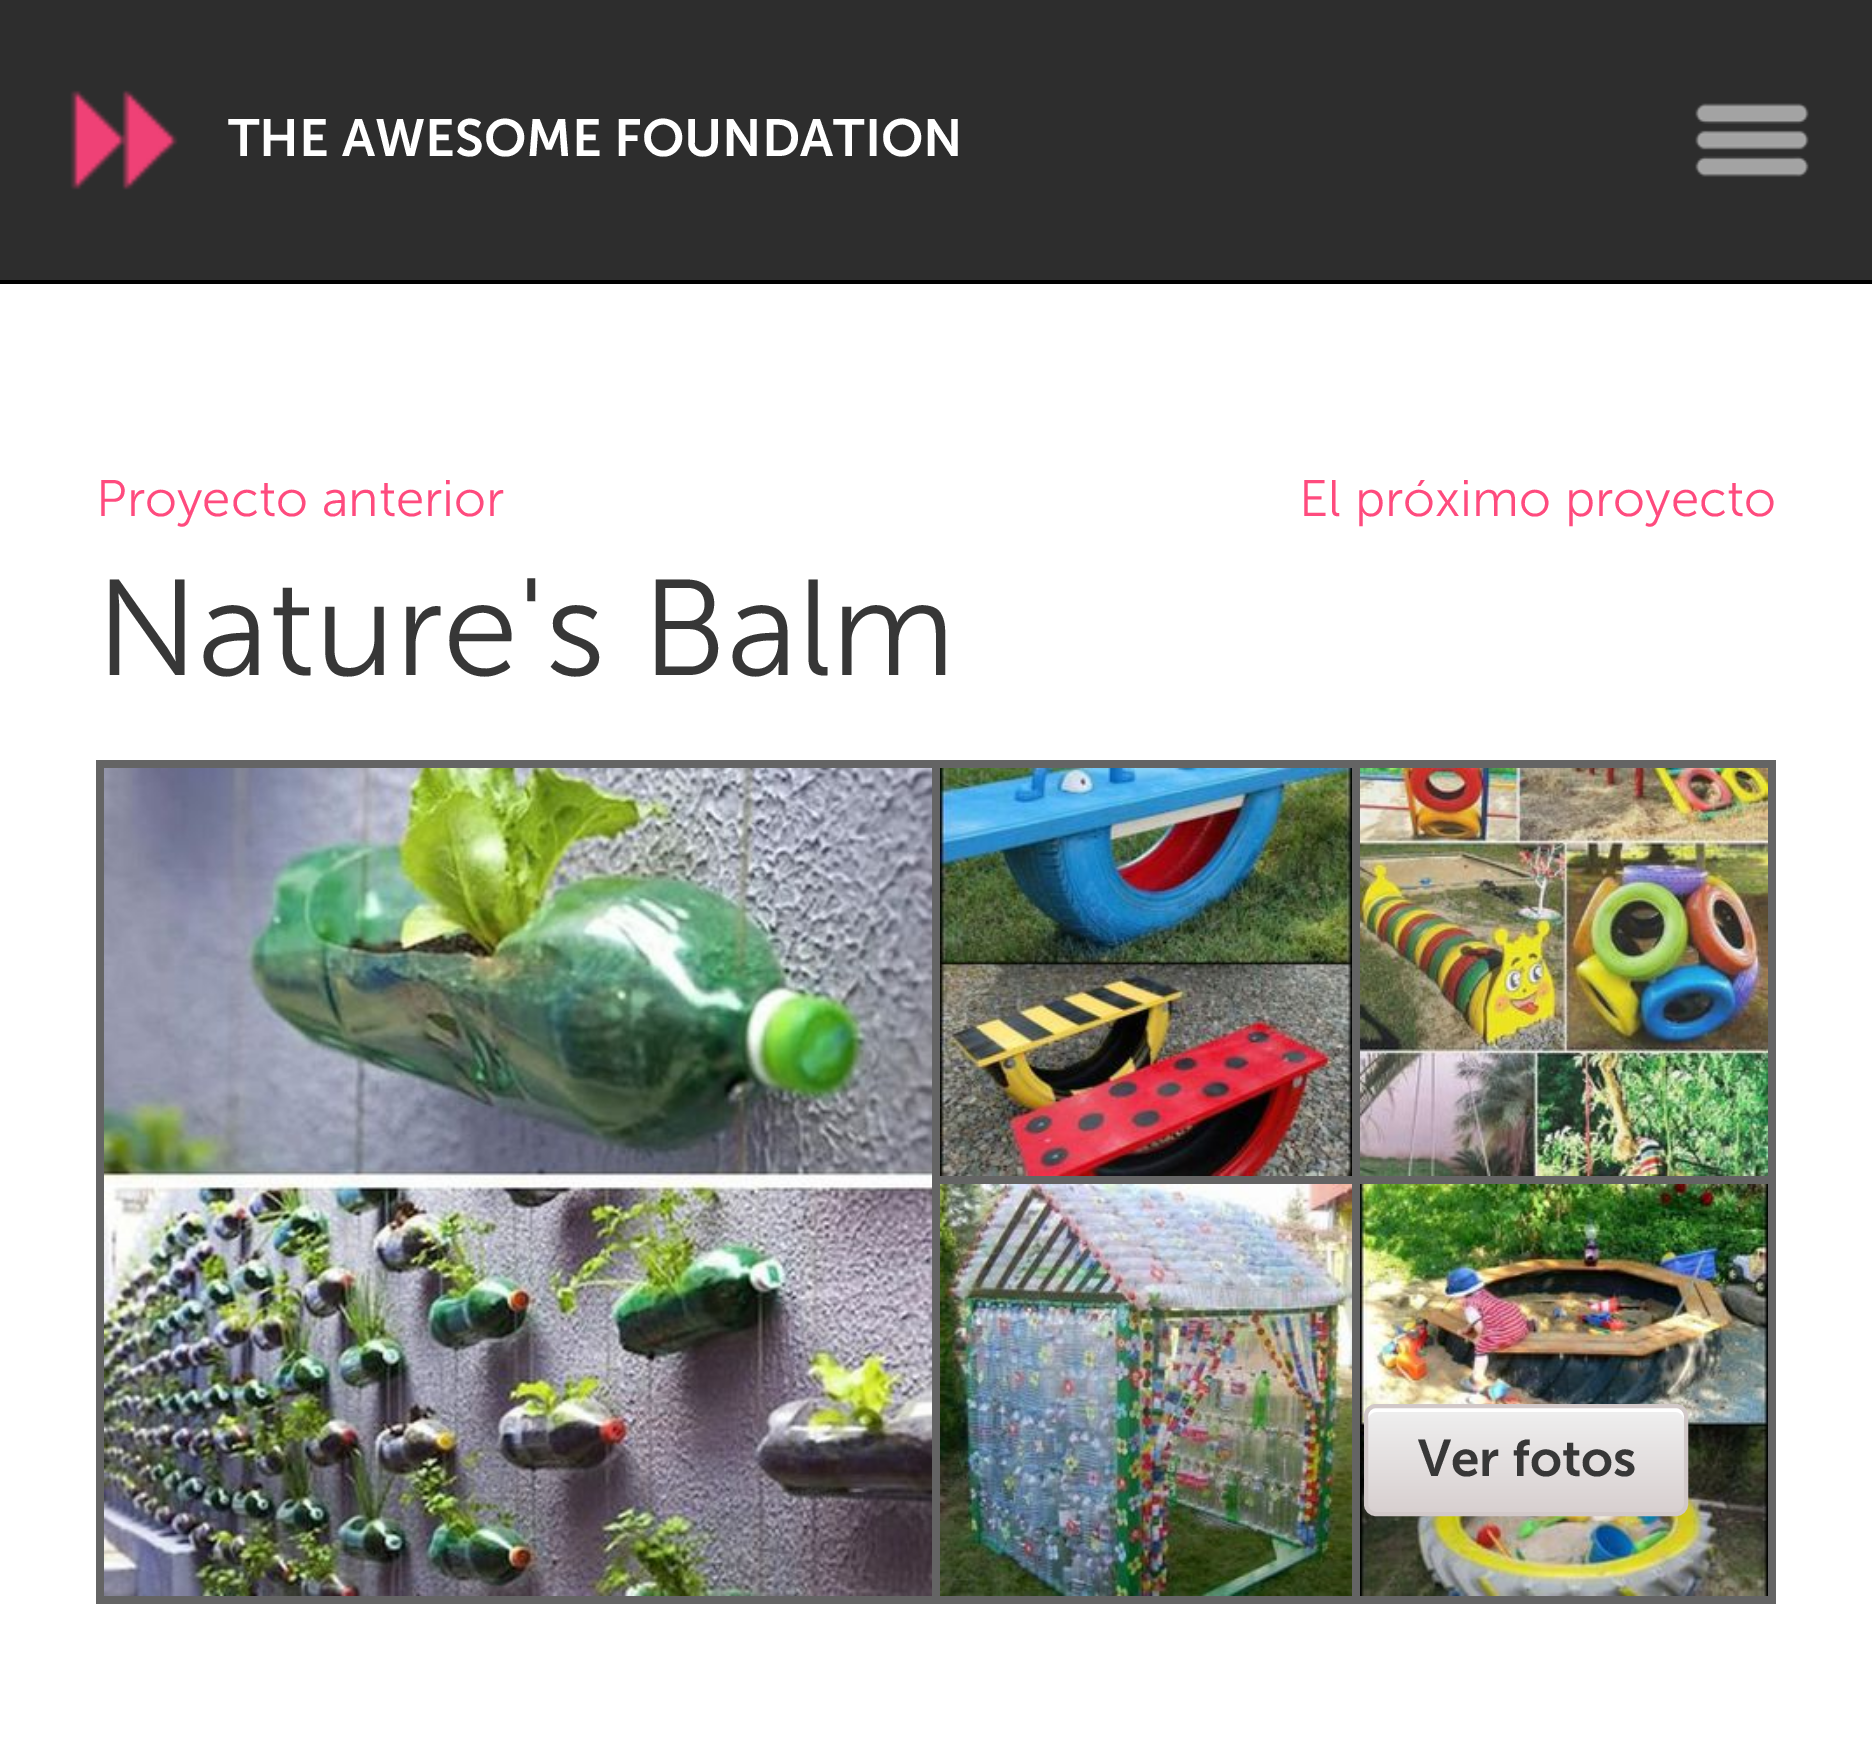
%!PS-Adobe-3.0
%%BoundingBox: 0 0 1872 1757
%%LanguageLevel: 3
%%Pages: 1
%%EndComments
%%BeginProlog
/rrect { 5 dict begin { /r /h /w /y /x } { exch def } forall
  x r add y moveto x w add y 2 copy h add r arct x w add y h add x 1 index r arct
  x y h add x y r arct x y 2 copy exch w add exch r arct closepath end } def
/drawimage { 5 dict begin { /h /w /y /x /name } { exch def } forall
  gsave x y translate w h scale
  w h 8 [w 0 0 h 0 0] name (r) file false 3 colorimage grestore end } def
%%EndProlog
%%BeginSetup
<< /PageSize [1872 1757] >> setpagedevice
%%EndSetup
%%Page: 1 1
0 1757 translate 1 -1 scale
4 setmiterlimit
1 setgray
0 0 1872 1757 rectfill
0.176 setgray
0 0 1872 280 rectfill
0 setgray
0 280 1872 4 rectfill
(images/1.raw) 70 90 108 100 drawimage
(images/2.raw) 1695 103 114 74 drawimage
0.392 setgray
96 760 1680 844 rectfill
(images/3.raw) 104 768 828 828 drawimage
(images/4.raw) 940 768 412 408 drawimage
(images/5.raw) 1360 768 408 408 drawimage
(images/6.raw) 940 1184 412 412 drawimage
(images/7.raw) 1360 1184 408 412 drawimage
gsave 1368 1408 316 104 8 rrect clip newpath
<< /ShadingType 2 /ColorSpace /DeviceRGB /Coords [1526 1408 1526 1512] /Extend [true true] /Function << /FunctionType 2 /Domain [0 1] /C0 [0.941 0.941 0.941] /C1 [0.847 0.816 0.816] /N 1 >> >> shfill grestore
1 setgray
newpath 1376 1412 moveto 1676 1412 lineto 1680 1412 1684 1416 1684 1420 curveto 1684 1416 lineto 1684 1412 1680 1408 1676 1408 curveto 1376 1408 lineto 1372 1408 1368 1412 1368 1416 curveto 1368 1420 lineto 1368 1416 1372 1412 1376 1412 curveto closepath fill
0.82 0.784 0.784 setrgbcolor
4 setlinewidth
1366 1406 320 108 10 rrect stroke
/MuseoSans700-SemiBold [52 0 0 -52 0 0] selectfont
1 setgray
228 156 moveto (THE AWESOME FOUNDATION) show
/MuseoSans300-Light [51.25 0 0 -51.25 0 0] selectfont
1 0.294 0.494 setrgbcolor
96 516 moveto (Proyecto anterior) show
1299 516 moveto (El próximo proyecto) show
/MuseoSans300-Light [136 0 0 -136 0 0] selectfont
0.216 setgray
96 675 moveto (Nature's Balm) show
/MuseoSans700-SemiBold [51.25 0 0 -51.25 0 0] selectfont
1418 1476 moveto (Ver fotos) show
showpage
%%EOF
